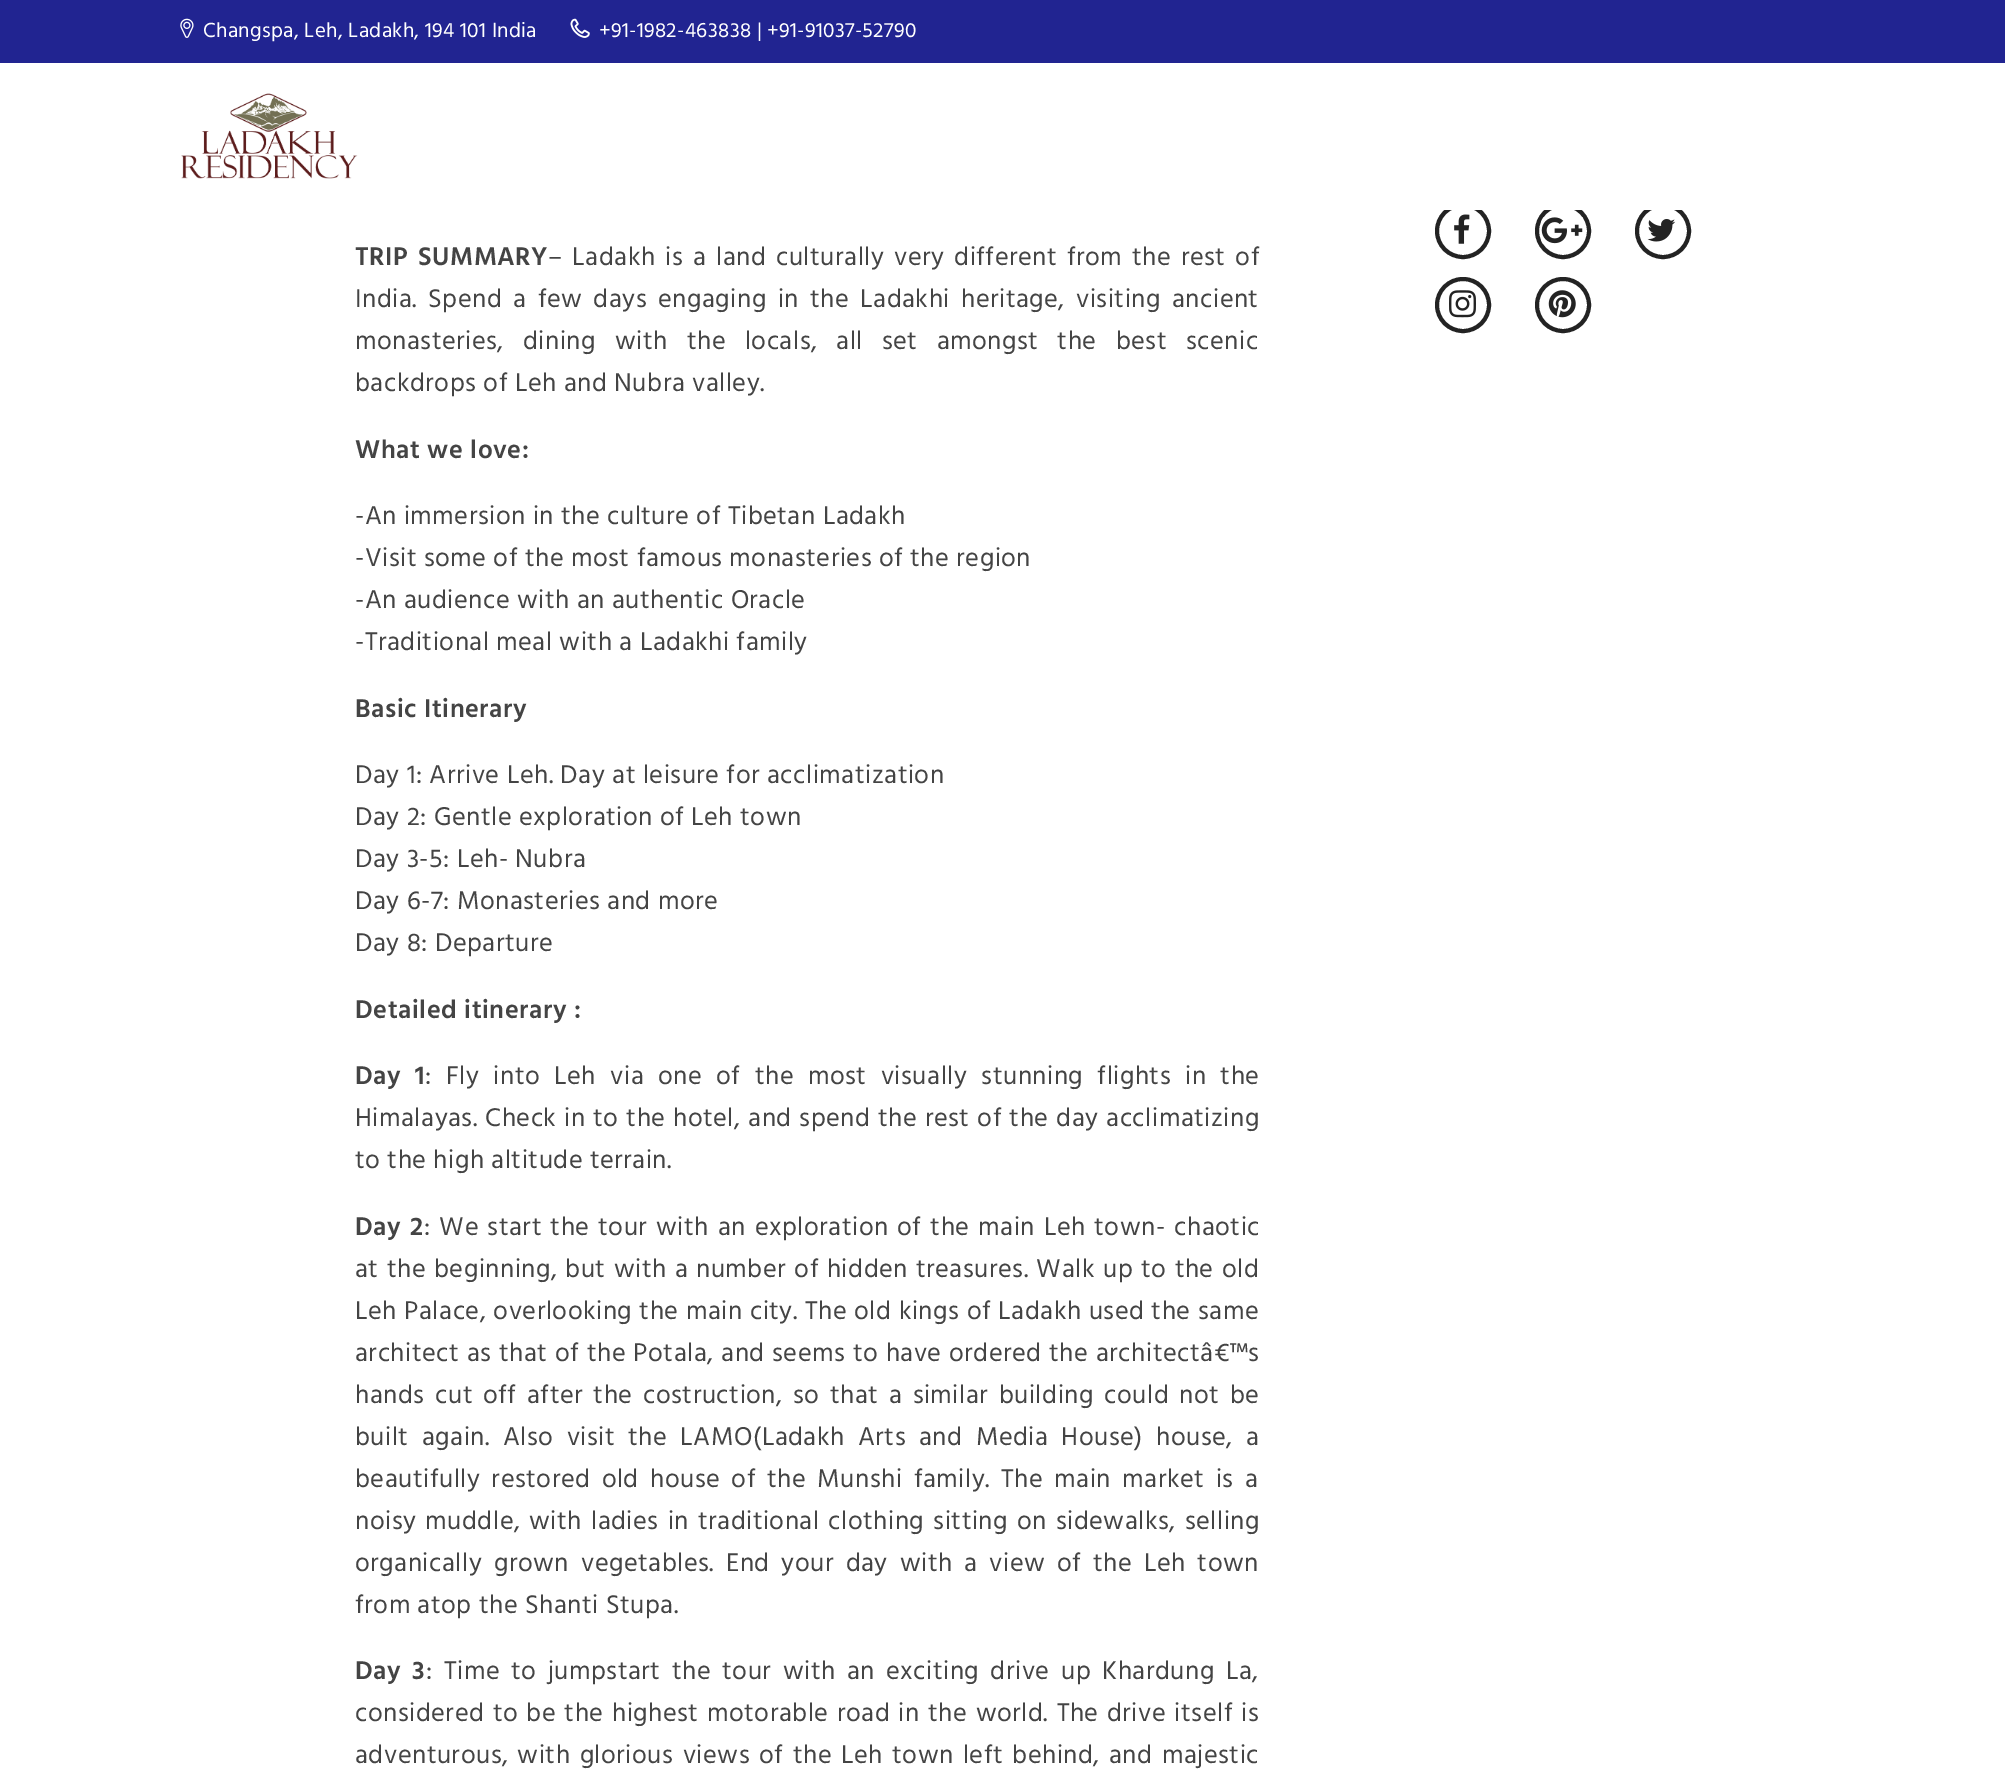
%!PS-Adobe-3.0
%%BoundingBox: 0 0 2005 1788
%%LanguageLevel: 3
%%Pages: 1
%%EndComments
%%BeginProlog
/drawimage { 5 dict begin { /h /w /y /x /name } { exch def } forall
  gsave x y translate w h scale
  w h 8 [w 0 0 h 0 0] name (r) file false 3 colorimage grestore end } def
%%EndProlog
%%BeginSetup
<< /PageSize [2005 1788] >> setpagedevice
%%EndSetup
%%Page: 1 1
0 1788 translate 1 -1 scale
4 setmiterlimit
1 setgray
0 0 2005 1788 rectfill
0.129 0.141 0.569 setrgbcolor
0 0 2005 63 rectfill
(images/1.raw) 180 18 14 20 drawimage
(images/2.raw) 570 18 20 20 drawimage
0.137 setgray
4 setlinewidth
newpath 1463 231 26 0 360 arc closepath stroke
newpath 1563 231 26 0 360 arc closepath stroke
newpath 1663 231 26 0 360 arc closepath stroke
1 setgray
1444 203 238 7 rectfill
(images/3.raw) 181 93 177 86 drawimage
(images/4.raw) 1454 214 16 30 drawimage
(images/5.raw) 1541 217 42 27 drawimage
(images/6.raw) 1647 219 29 23 drawimage
0.137 setgray
newpath 1463 305 26 0 360 arc closepath stroke
(images/7.raw) 1449 290 27 28 drawimage
newpath 1563 305 26 0 360 arc closepath stroke
(images/8.raw) 1548 290 28 28 drawimage
/Hind-Regular [21 0 0 -21 0 0] selectfont
1 setgray
203 37 moveto 0.35 0 (Changspa, Leh, Ladakh, 194 101 India) ashow
599 37 moveto 0.35 0 (+91-1982-463838 | +91-91037-52790) ashow
/Hind-SemiBold [26.25 0 0 -26.25 0 0] selectfont
0.267 setgray
355 265 moveto 2.75 0 32 0.53 0 (TRIP SUMMARY) awidthshow
/Hind-Regular [26.25 0 0 -26.25 0 0] selectfont
548 265 moveto 2.75 0 32 0.53 0 (– Ladakh is a land culturally very different from the rest of) awidthshow
355 307 moveto 4.1 0 32 0.53 0 (India. Spend a few days engaging in the Ladakhi heritage, visiting ancient) awidthshow
355 349 moveto 12 0 32 0.53 0 (monasteries, dining with the locals, all set amongst the best scenic) awidthshow
355 391 moveto 0.53 0 (backdrops of Leh and Nubra valley.) ashow
/Hind-SemiBold [26.25 0 0 -26.25 0 0] selectfont
355 458 moveto 0.53 0 (What we love:) ashow
/Hind-Regular [26.25 0 0 -26.25 0 0] selectfont
355 524 moveto 0.53 0 (-An immersion in the culture of Tibetan Ladakh) ashow
355 566 moveto 0.53 0 (-Visit some of the most famous monasteries of the region) ashow
355 608 moveto 0.53 0 (-An audience with an authentic Oracle) ashow
355 650 moveto 0.53 0 (-Traditional meal with a Ladakhi family) ashow
/Hind-SemiBold [26.25 0 0 -26.25 0 0] selectfont
355 717 moveto 0.53 0 (Basic Itinerary) ashow
/Hind-Regular [26.25 0 0 -26.25 0 0] selectfont
355 783 moveto 0.53 0 (Day 1: Arrive Leh. Day at leisure for acclimatization) ashow
355 825 moveto 0.53 0 (Day 2: Gentle exploration of Leh town) ashow
355 867 moveto 0.53 0 (Day 3-5: Leh- Nubra) ashow
355 909 moveto 0.53 0 (Day 6-7: Monasteries and more) ashow
355 951 moveto 0.53 0 (Day 8: Departure) ashow
/Hind-SemiBold [26.25 0 0 -26.25 0 0] selectfont
355 1018 moveto 0.53 0 (Detailed itinerary :) ashow
355 1084 moveto 7.1 0 32 0.53 0 (Day 1) awidthshow
/Hind-Regular [26.25 0 0 -26.25 0 0] selectfont
425 1084 moveto 7.1 0 32 0.53 0 (: Fly into Leh via one of the most visually stunning flights in the) awidthshow
355 1126 moveto 0.7 0 32 0.53 0 (Himalayas. Check in to the hotel, and spend the rest of the day acclimatizing) awidthshow
355 1168 moveto 0.53 0 (to the high altitude terrain.) ashow
/Hind-SemiBold [26.25 0 0 -26.25 0 0] selectfont
355 1235 moveto 2 0 32 0.53 0 (Day 2) awidthshow
/Hind-Regular [26.25 0 0 -26.25 0 0] selectfont
424 1235 moveto 1.75 0 32 0.53 0 (: We start the tour with an exploration of the main Leh town- chaotic) awidthshow
355 1277 moveto 1.1 0 32 0.53 0 (at the beginning, but with a number of hidden treasures. Walk up to the old) awidthshow
355 1319 moveto 0.25 0 32 0.53 0 (Leh Palace, overlooking the main city. The old kings of Ladakh used the same) awidthshow
355 1361 moveto 0.5 0 32 0.53 0 (architect as that of the Potala, and seems to have ordered the architectâ€™s) awidthshow
355 1403 moveto 3.4 0 32 0.53 0 (hands cut off after the costruction, so that a similar building could not be) awidthshow
355 1445 moveto 6.1 0 32 0.53 0 (built again. Also visit the LAMO\(Ladakh Arts and Media House\) house, a) awidthshow
355 1487 moveto 4.25 0 32 0.53 0 (beautifully restored old house of the Munshi family. The main market is a) awidthshow
355 1529 moveto 2 0 32 0.53 0 (noisy muddle, with ladies in traditional clothing sitting on sidewalks, selling) awidthshow
355 1571 moveto 4.75 0 32 0.53 0 (organically grown vegetables. End your day with a view of the Leh town) awidthshow
355 1613 moveto 0.53 0 (from atop the Shanti Stupa.) ashow
/Hind-SemiBold [26.25 0 0 -26.25 0 0] selectfont
355 1679 moveto 4.25 0 32 0.53 0 (Day 3) awidthshow
/Hind-Regular [26.25 0 0 -26.25 0 0] selectfont
426 1679 moveto 4.25 0 32 0.53 0 (: Time to jumpstart the tour with an exciting drive up Khardung La,) awidthshow
355 1721 moveto 1.4 0 32 0.53 0 (considered to be the highest motorable road in the world. The drive itself is) awidthshow
355 1763 moveto 2.25 0 32 0.53 0 (adventurous, with glorious views of the Leh town left behind, and majestic) awidthshow
showpage
%%EOF
